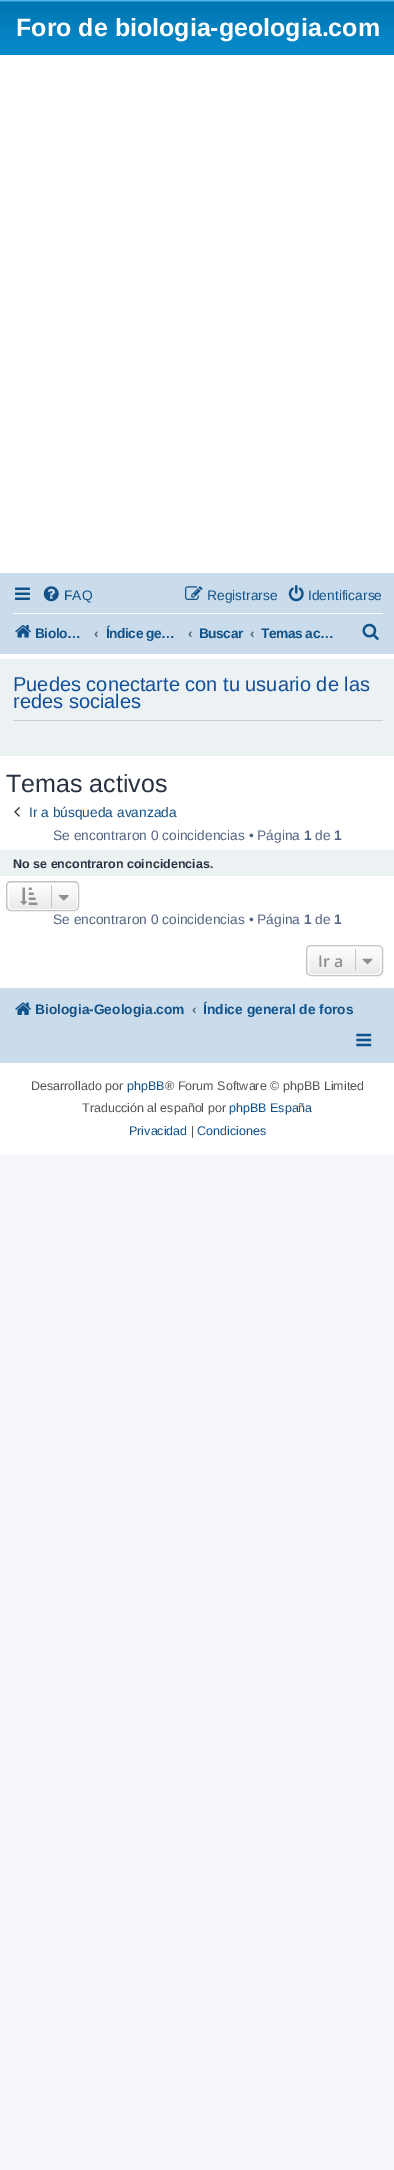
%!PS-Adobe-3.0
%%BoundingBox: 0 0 394 2170
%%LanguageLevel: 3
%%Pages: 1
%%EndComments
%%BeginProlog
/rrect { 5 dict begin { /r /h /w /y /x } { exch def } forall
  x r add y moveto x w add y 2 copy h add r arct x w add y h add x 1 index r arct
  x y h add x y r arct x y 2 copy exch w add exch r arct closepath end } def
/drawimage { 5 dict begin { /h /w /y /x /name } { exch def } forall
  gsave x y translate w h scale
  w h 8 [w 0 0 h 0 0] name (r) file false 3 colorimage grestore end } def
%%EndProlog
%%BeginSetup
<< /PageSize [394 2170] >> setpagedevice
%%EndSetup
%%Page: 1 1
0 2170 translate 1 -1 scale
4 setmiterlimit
0.961 0.969 0.98 setrgbcolor
0 0 394 2170 rectfill
1 setgray
0 55 394 1100 rectfill
gsave newpath 0 0 moveto 394 0 lineto 394 55 lineto 0 55 lineto closepath clip newpath
<< /ShadingType 2 /ColorSpace /DeviceRGB /Coords [198 0 198 115] /Extend [true true] /Function << /FunctionType 3 /Domain [0 1] /Functions [<< /FunctionType 2 /Domain [0 1] /C0 [0.416 0.808 1] /C1 [0 0.463 0.694] /N 1 >> << /FunctionType 2 /Domain [0 1] /C0 [0 0.463 0.694] /C1 [0.071 0.639 0.922] /N 1 >>] /Bounds [0.02] /Encode [0 1 0 1] >> >> shfill grestore
0.792 0.863 0.922 setrgbcolor
0 573 394 81 rectfill
(images/1.raw) 15 587 15 13 drawimage
(images/2.raw) 43 586 16 16 drawimage
(images/3.raw) 185 586 18 14 drawimage
(images/4.raw) 288 585 16 17 drawimage
1 setgray
13 613 370 1 rectfill
(images/5.raw) 15 625 16 13 drawimage
(images/6.raw) 362 623 17 17 drawimage
0.925 0.945 0.953 setrgbcolor
0 659 394 97 rectfill
0.8 setgray
13 720 370 1 rectfill
(images/7.raw) 14 807 6 10 drawimage
0.925 0.945 0.953 setrgbcolor
0 850 394 26 rectfill
gsave
6 881 73 30 5 rrect clip newpath
gsave newpath 6 881 moveto 79 881 lineto 79 883 lineto 6 883 lineto closepath clip newpath
<< /ShadingType 2 /ColorSpace /DeviceRGB /Coords [43 855 43 883] /Extend [true true] /Function << /FunctionType 2 /Domain [0 1] /C0 [1 1 1] /C1 [0.914 0.914 0.914] /N 1 >> >> shfill grestore
gsave newpath 6 883 moveto 79 883 lineto 79 910 lineto 6 910 lineto closepath clip newpath
<< /ShadingType 2 /ColorSpace /DeviceRGB /Coords [43 883 43 910] /Extend [true true] /Function << /FunctionType 2 /Domain [0 1] /C0 [1 1 1] /C1 [0.914 0.914 0.914] /N 1 >> >> shfill grestore
grestore
1 setgray
8.5 883.5 69 26 3.5 rrect stroke
0.78 0.765 0.749 setrgbcolor
6.5 881.5 72 29 4.5 rrect stroke
(images/8.raw) 20 887 18 18 drawimage
51 885 1 23 rectfill
(images/9.raw) 58 895 11 6 drawimage
gsave
306 945 77 31 5 rrect clip newpath
gsave newpath 306 946 moveto 383 946 lineto 383 975 lineto 306 975 lineto closepath clip newpath
<< /ShadingType 2 /ColorSpace /DeviceRGB /Coords [344 946 344 975] /Extend [true true] /Function << /FunctionType 2 /Domain [0 1] /C0 [1 1 1] /C1 [0.914 0.914 0.914] /N 1 >> >> shfill grestore
grestore
1 setgray
308.5 946.5 72 28 3.5 rrect stroke
0.78 0.765 0.749 setrgbcolor
306.5 945.5 76 30 4.5 rrect stroke
355 949 1 22 rectfill
(images/10.raw) 362 958 11 7 drawimage
0.792 0.863 0.922 setrgbcolor
0 988 394 75 rectfill
(images/11.raw) 15 1002 16 13 drawimage
(images/12.raw) 356 1033 16 14 drawimage
/LiberationSans-Bold [25 0 0 -25 0 0] selectfont
1 setgray
16 36 moveto (Foro de biologia-geologia.com) show
/LiberationSans-Regular [13.75 0 0 -13.75 0 0] selectfont
0.063 0.322 0.537 setrgbcolor
64 600 moveto (FAQ) show
207 600 moveto (Registrarse) show
308 600 moveto (Identificarse) show
/LiberationSans-Bold [13.75 0 0 -13.75 0 0] selectfont
35 638 moveto -0.5 0 (Biolo…) ashow
0.325 0.392 0.51 setrgbcolor
94 638 moveto (‹) show
0.063 0.322 0.537 setrgbcolor
106 638 moveto -0.5 0 (Índice ge…) ashow
0.325 0.392 0.51 setrgbcolor
188 638 moveto (‹) show
0.063 0.322 0.537 setrgbcolor
199 638 moveto -0.5 0 (Buscar) ashow
0.325 0.392 0.51 setrgbcolor
250 638 moveto (‹) show
0.063 0.322 0.537 setrgbcolor
261 638 moveto -0.5 0 (Temas ac…) ashow
/LiberationSans-Regular [20 0 0 -20 0 0] selectfont
0.067 0.314 0.596 setrgbcolor
13 691 moveto (Puedes conectarte con tu usuario de las) show
13 708 moveto (redes sociales) show
/LiberationSans-Regular [25 0 0 -25 0 0] selectfont
0.157 0.192 0.247 setrgbcolor
6 792 moveto (Temas activos) show
/LiberationSans-Regular [13.75 0 0 -13.75 0 0] selectfont
0.063 0.322 0.537 setrgbcolor
29 817 moveto (Ir a búsqueda avanzada) show
0.325 0.392 0.51 setrgbcolor
53 840 moveto (Se encontraron 0 coincidencias • Página) show
/LiberationSans-Bold [13.75 0 0 -13.75 0 0] selectfont
304 840 moveto (1) show
/LiberationSans-Regular [13.75 0 0 -13.75 0 0] selectfont
315 840 moveto (de) show
/LiberationSans-Bold [13.75 0 0 -13.75 0 0] selectfont
334 840 moveto (1) show
/LiberationSans-Bold [12.5 0 0 -12.5 0 0] selectfont
0.157 0.192 0.247 setrgbcolor
13 868 moveto (No se encontraron coincidencias.) show
/LiberationSans-Regular [13.75 0 0 -13.75 0 0] selectfont
0.325 0.392 0.51 setrgbcolor
53 924 moveto (Se encontraron 0 coincidencias • Página) show
/LiberationSans-Bold [13.75 0 0 -13.75 0 0] selectfont
304 924 moveto (1) show
/LiberationSans-Regular [13.75 0 0 -13.75 0 0] selectfont
315 924 moveto (de) show
/LiberationSans-Bold [13.75 0 0 -13.75 0 0] selectfont
334 924 moveto (1) show
/OpenSans-SemiBold [16 0 0 -16 0 0] selectfont
0.561 setgray
318 967 moveto (Ir a) show
/LiberationSans-Bold [13.75 0 0 -13.75 0 0] selectfont
0.063 0.322 0.537 setrgbcolor
35 1014 moveto (Biologia-Geologia.com) show
0.325 0.392 0.51 setrgbcolor
192 1014 moveto (‹) show
0.063 0.322 0.537 setrgbcolor
203 1014 moveto (Índice general de foros) show
/LiberationSans-Regular [12.5 0 0 -12.5 0 0] selectfont
0.333 setgray
31 1090 moveto (Desarrollado por) show
0.063 0.322 0.537 setrgbcolor
127 1090 moveto (phpBB) show
0.333 setgray
165 1090 moveto (® Forum Software © phpBB Limited) show
82 1112 moveto (Traducción al español por) show
0.063 0.322 0.537 setrgbcolor
229 1112 moveto (phpBB España) show
129 1135 moveto (Privacidad) show
0.333 setgray
191 1135 moveto (|) show
0.063 0.322 0.537 setrgbcolor
197 1135 moveto (Condiciones) show
showpage
%%EOF
